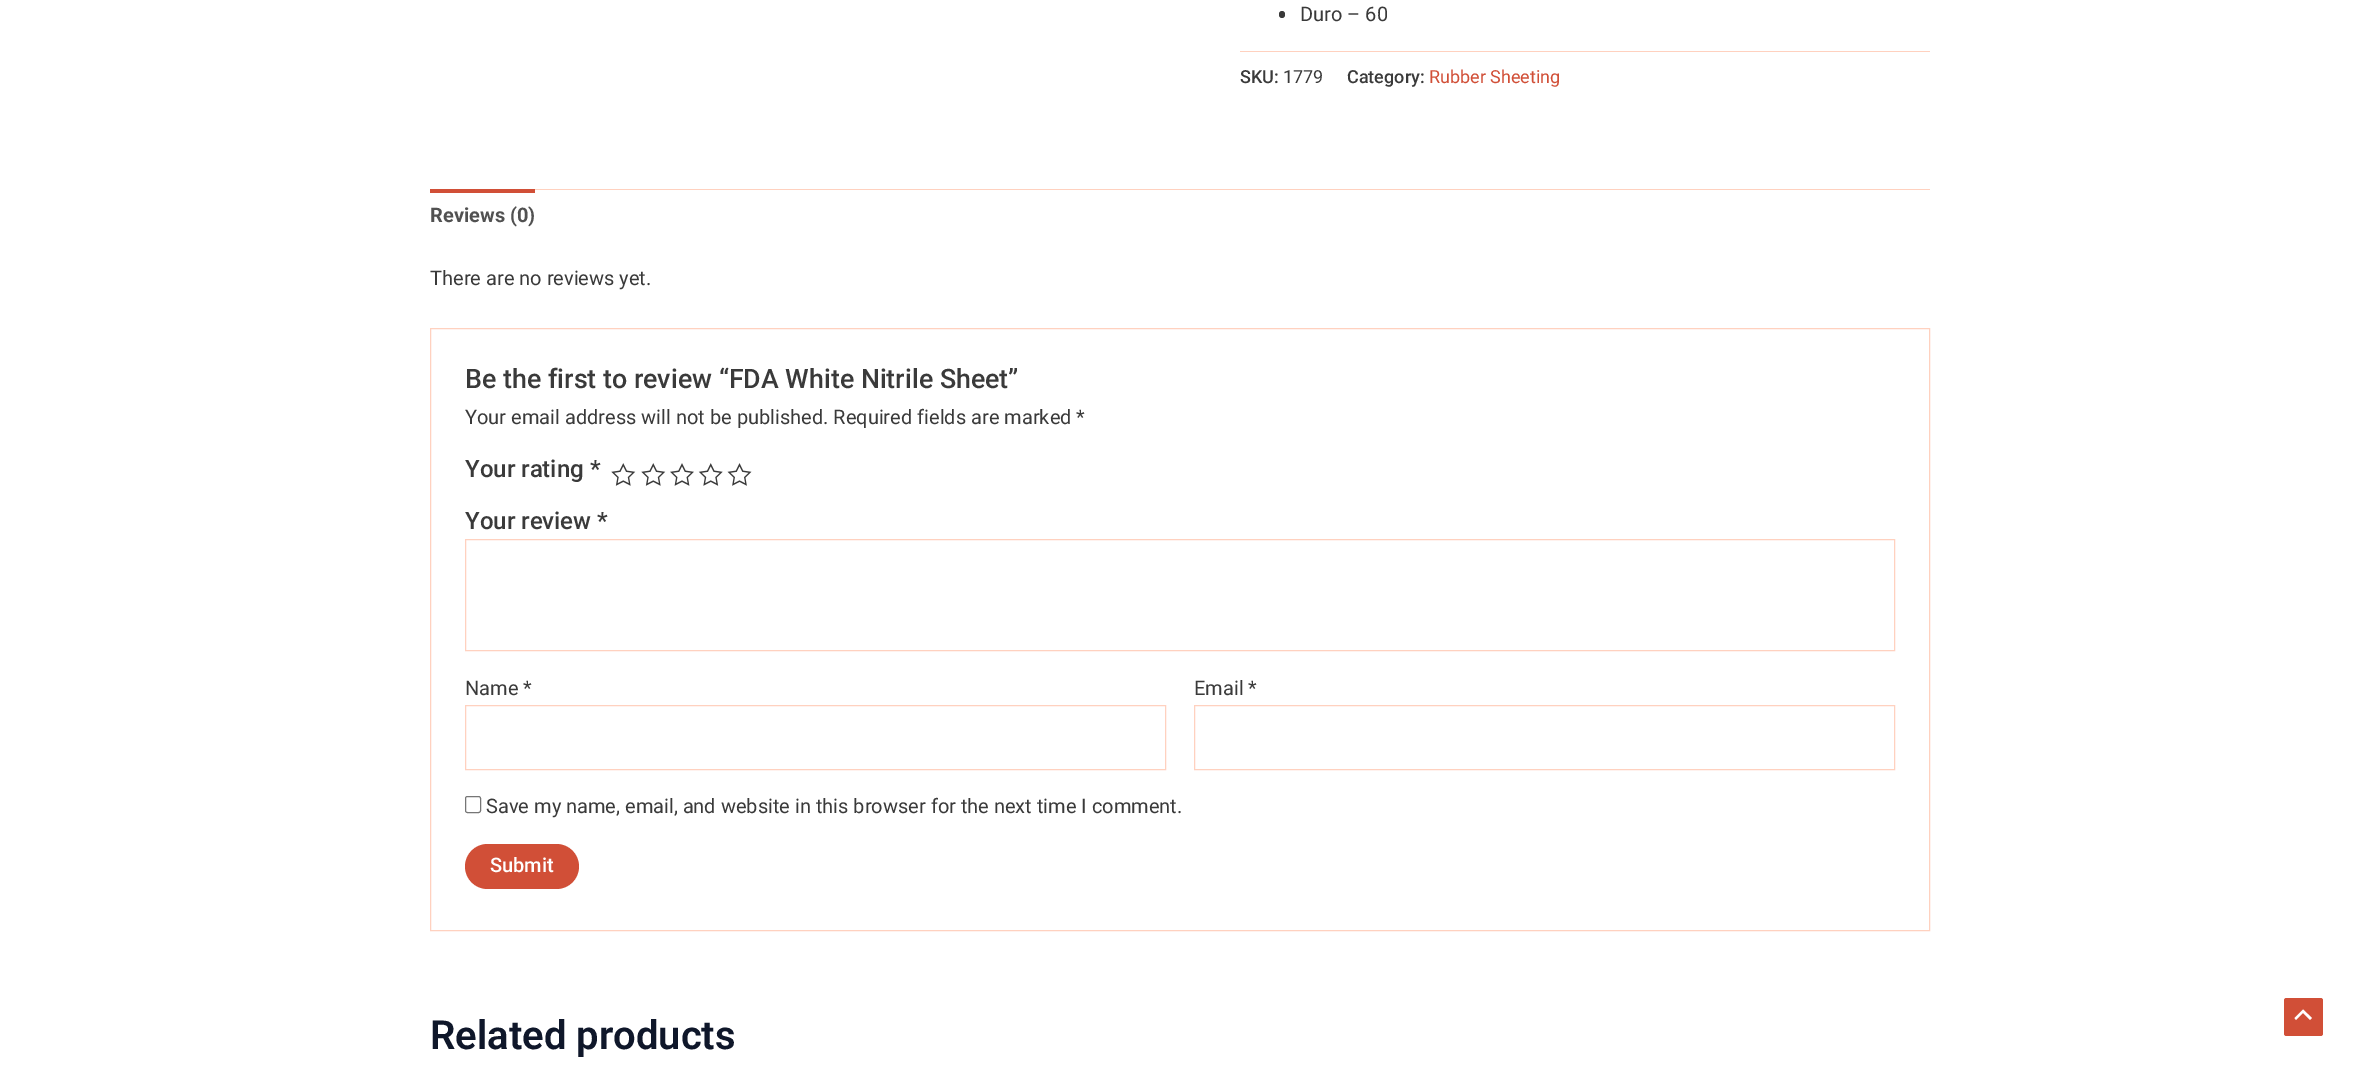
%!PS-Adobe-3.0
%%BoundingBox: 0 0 2360 1073
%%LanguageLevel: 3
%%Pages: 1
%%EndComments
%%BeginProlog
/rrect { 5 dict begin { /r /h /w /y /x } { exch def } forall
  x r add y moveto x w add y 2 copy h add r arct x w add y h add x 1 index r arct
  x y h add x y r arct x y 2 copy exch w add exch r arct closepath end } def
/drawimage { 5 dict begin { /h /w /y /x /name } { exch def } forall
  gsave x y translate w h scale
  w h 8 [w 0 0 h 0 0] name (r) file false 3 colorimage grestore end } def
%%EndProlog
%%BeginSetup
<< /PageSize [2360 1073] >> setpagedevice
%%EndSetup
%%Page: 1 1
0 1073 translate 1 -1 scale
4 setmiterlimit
1 setgray
0 0 2360 1073 rectfill
0.227 setgray
1279 11 6 7 3 rrect fill
1 0.82 0.749 setrgbcolor
1240 51 690 1 rectfill
535 189 1395 1 rectfill
0.82 0.31 0.216 setrgbcolor
430 189 105 4 rectfill
1 0.82 0.749 setrgbcolor
430.5 328.5 1499 602 rectstroke
(images/1.raw) 611 463 25 23 drawimage
(images/1.raw) 641 463 25 23 drawimage
(images/2.raw) 670 463 24 23 drawimage
(images/3.raw) 698 463 25 23 drawimage
(images/4.raw) 727 463 25 23 drawimage
465.5 539.5 1429 111 rectstroke
465.5 705.5 700 64 rectstroke
1194.5 705.5 700 64 rectstroke
0.463 setgray
465.5 796.5 15 16 2 rrect stroke
0.82 0.31 0.216 setrgbcolor
465 844 114 45 22.5 rrect fill
2284 998 39 38 2.5 rrect fill
1 setgray
newpath 2312 1018 moveto 2303 1009.5 lineto 2294.5 1018 lineto 2296 1020 lineto 2303 1013 lineto 2310 1020 lineto closepath fill
/Roboto-Regular [20 0 0 -20 0 0] selectfont
0.227 setgray
1300 21 moveto (Duro – 60) show
/Roboto-Medium [18 0 0 -18 0 0] selectfont
1240 83 moveto (SKU:) show
/Roboto-Regular [18 0 0 -18 0 0] selectfont
1283 83 moveto (1779) show
/Roboto-Medium [18 0 0 -18 0 0] selectfont
1347 83 moveto (Category:) show
/Roboto-Regular [18 0 0 -18 0 0] selectfont
0.82 0.31 0.216 setrgbcolor
1429 83 moveto (Rubber Sheeting) show
/Roboto-Bold [20 0 0 -20 0 0] selectfont
0.318 setgray
430 222 moveto (Reviews \(0\)) show
/Roboto-Regular [20 0 0 -20 0 0] selectfont
0.227 setgray
430 285 moveto (There are no reviews yet.) show
/Roboto-Medium [26.8 0 0 -26.8 0 0] selectfont
465 388 moveto (Be the first to review “FDA White Nitrile Sheet”) show
/Roboto-Regular [20 0 0 -20 0 0] selectfont
465 424 moveto (Your email address will not be published. Required fields are marked *) show
/Roboto-Medium [24 0 0 -24 0 0] selectfont
465 477 moveto (Your rating *) show
465 529 moveto (Your review *) show
/Roboto-Regular [20 0 0 -20 0 0] selectfont
465 695 moveto (Name *) show
1194 695 moveto (Email *) show
486 813 moveto (Save my name, email, and website in this browser for the next time I comment.) show
/Roboto-Medium [20 0 0 -20 0 0] selectfont
1 setgray
490 872 moveto (Submit) show
/Roboto-SemiBold [40 0 0 -40 0 0] selectfont
0.059 0.09 0.165 setrgbcolor
430 1049 moveto (Related products) show
showpage
%%EOF
